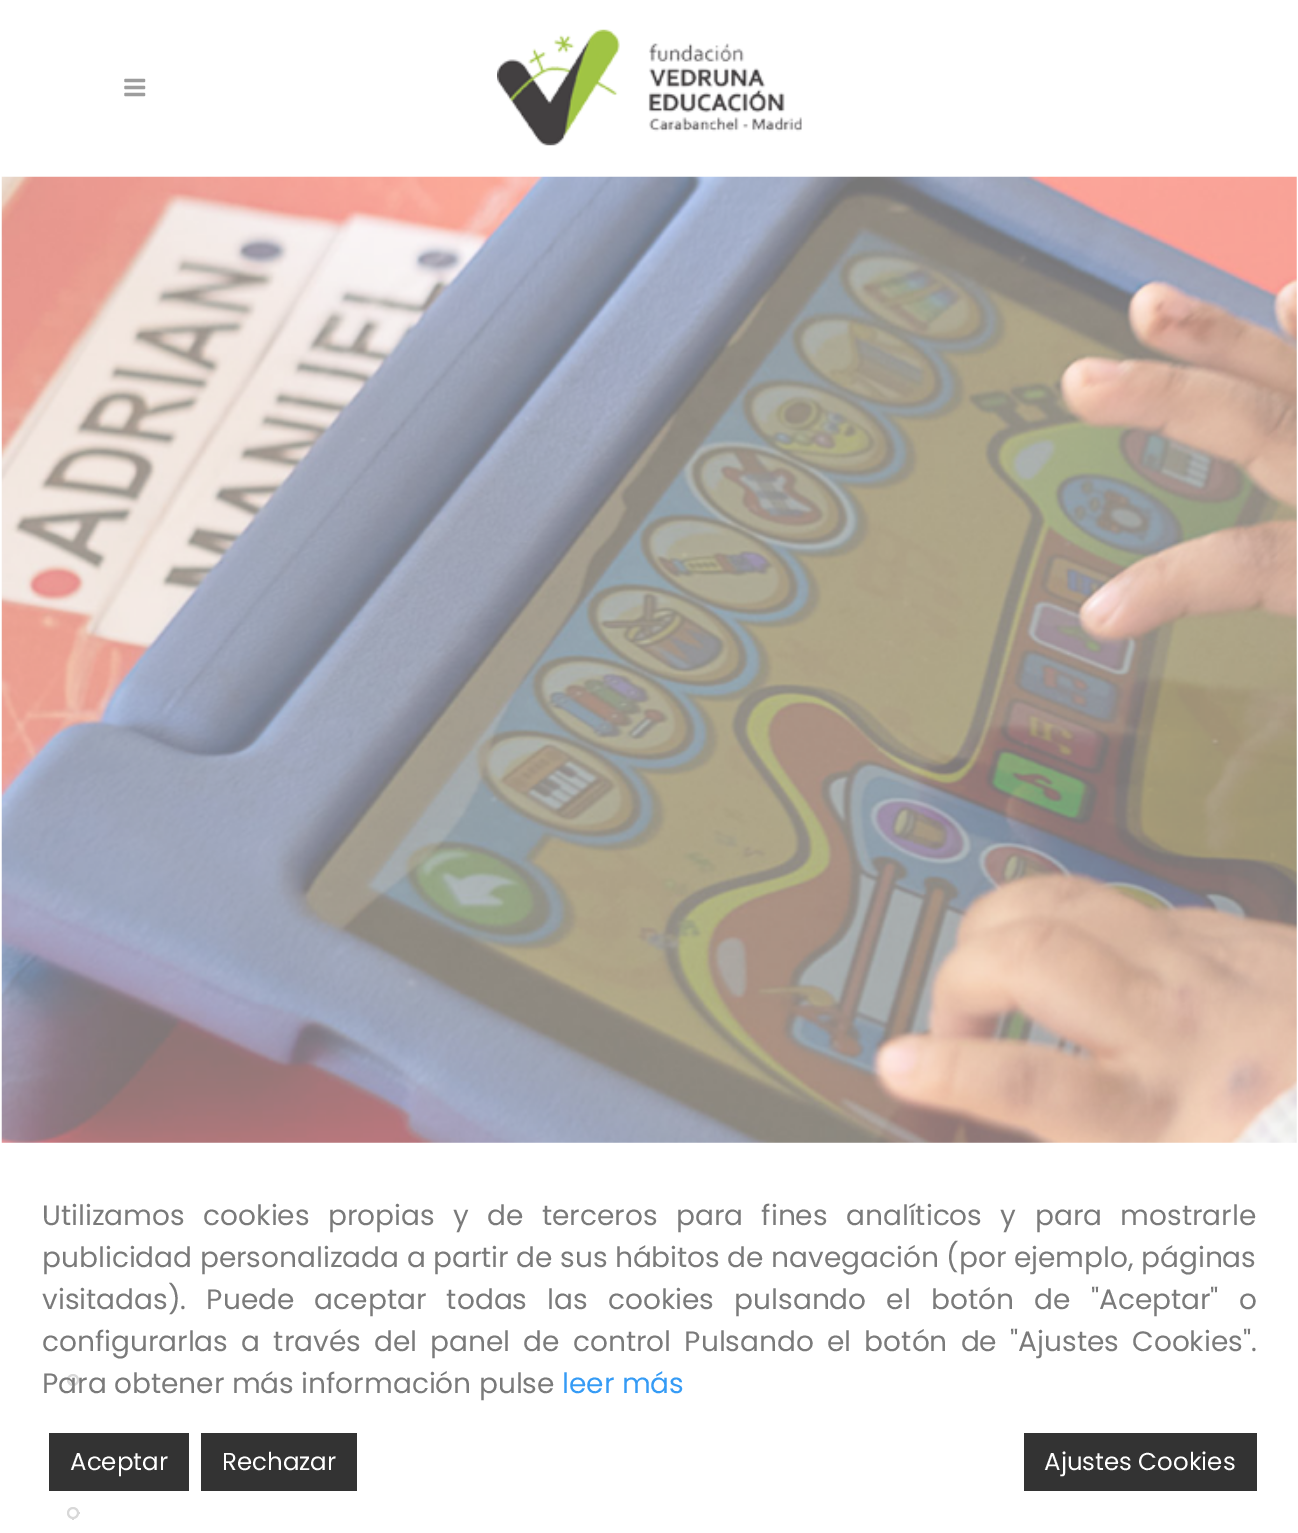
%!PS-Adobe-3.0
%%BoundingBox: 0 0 1298 1533
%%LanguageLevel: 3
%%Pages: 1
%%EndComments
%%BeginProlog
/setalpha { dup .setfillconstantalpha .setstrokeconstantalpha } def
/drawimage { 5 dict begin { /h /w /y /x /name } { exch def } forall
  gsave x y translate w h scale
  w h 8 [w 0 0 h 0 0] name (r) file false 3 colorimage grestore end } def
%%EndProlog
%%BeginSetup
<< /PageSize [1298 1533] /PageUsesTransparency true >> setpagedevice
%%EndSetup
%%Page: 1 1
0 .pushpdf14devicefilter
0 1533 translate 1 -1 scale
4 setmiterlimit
1 setgray
0 0 1298 1533 rectfill
(images/1.raw) 124 78 22 19 drawimage
(images/2.raw) 497 29 305 117 drawimage
(images/3.raw) 1 176 1296 967 drawimage
0.243 0.235 0.235 setrgbcolor
2 setlinewidth
newpath 73 1380 5 0 360 arc closepath stroke
newpath 73 1513 5 0 360 arc closepath stroke
0.8 setalpha
1 setgray
67 1374 12 145 rectfill
1 setalpha
0.2 setgray
49 1433 140 58 rectfill
201 1433 156 58 rectfill
1024 1433 233 58 rectfill
/Poppins-Regular [28 0 0 -28 0 0] selectfont
0.478 setgray
42 1225 moveto 11 0 32 (Utilizamos cookies propias y de terceros para fines analíticos y para mostrarle) widthshow
42 1267 moveto (publicidad personalizada a partir de sus hábitos de navegación \(por ejemplo, páginas) show
42 1309 moveto 12.75 0 32 (visitadas\). Puede aceptar todas las cookies pulsando el botón de "Aceptar" o) widthshow
42 1351 moveto 5.75 0 32 (configurarlas a través del panel de control Pulsando el botón de "Ajustes Cookies".) widthshow
42 1393 moveto (Para obtener más información pulse) show
0.208 0.608 0.961 setrgbcolor
562 1393 moveto (leer más) show
/Poppins-Regular [24.5 0 0 -24.5 0 0] selectfont
1 setgray
70 1470 moveto (Aceptar) show
222 1470 moveto (Rechazar) show
1044 1470 moveto (Ajustes Cookies) show
.poppdf14devicefilter showpage
%%EOF
